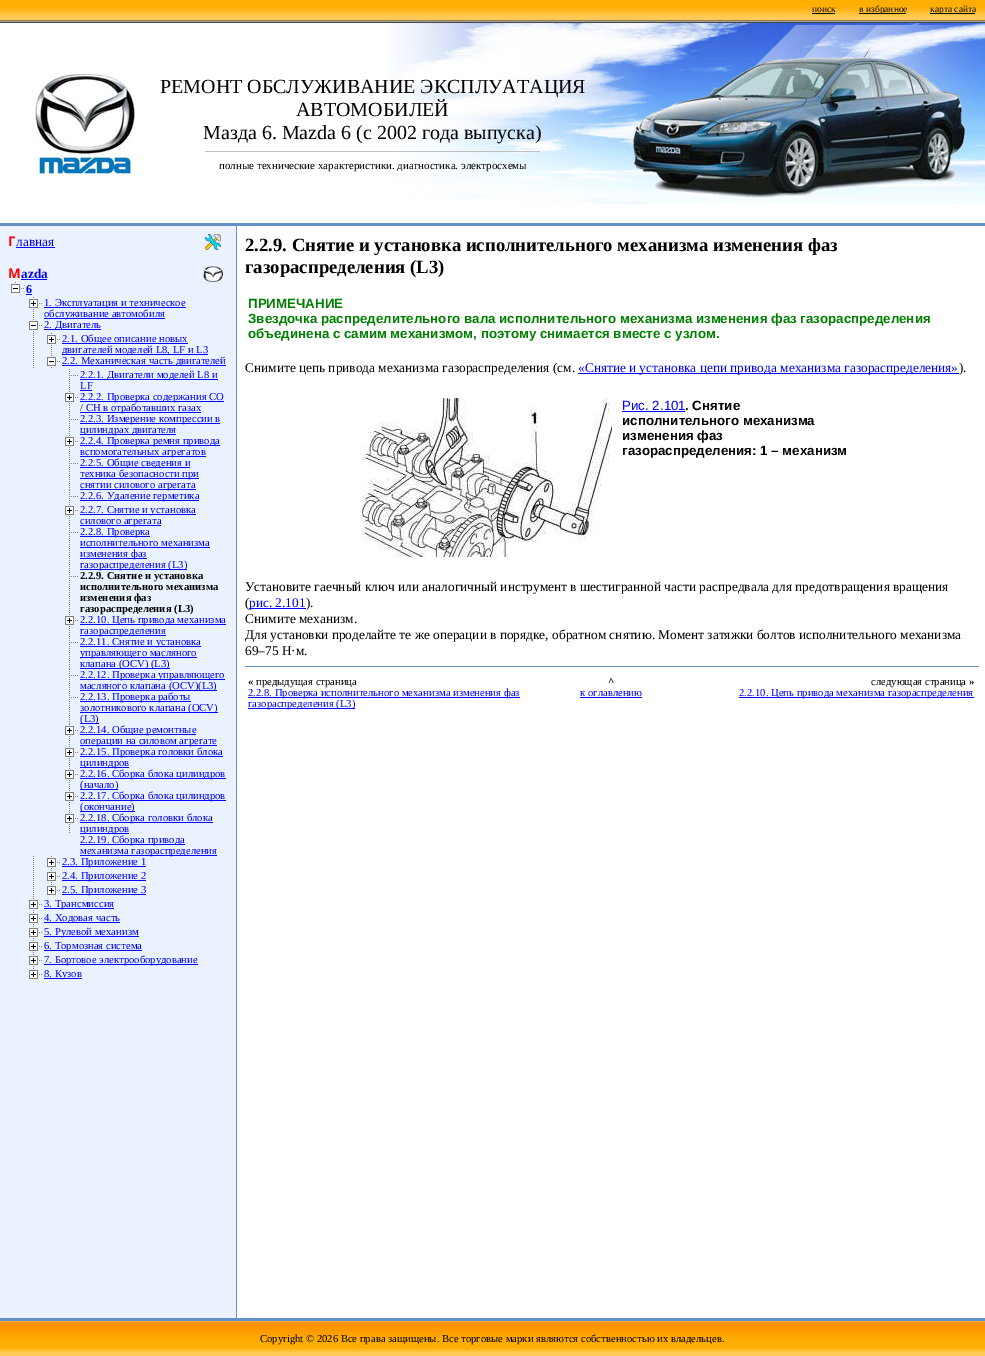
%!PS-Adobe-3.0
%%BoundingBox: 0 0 985 1356
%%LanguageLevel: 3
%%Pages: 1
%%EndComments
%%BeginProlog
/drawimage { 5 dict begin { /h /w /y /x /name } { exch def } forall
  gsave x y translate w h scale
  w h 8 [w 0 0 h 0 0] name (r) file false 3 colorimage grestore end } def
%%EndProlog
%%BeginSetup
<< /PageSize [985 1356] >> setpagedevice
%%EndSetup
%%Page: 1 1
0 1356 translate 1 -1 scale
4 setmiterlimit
1 setgray
0 0 985 1356 rectfill
(images/1.raw) 0 0 985 23 drawimage
0.039 setgray
812 13 23 1 rectfill
859 13 47 1 rectfill
930 13 45 1 rectfill
(images/2.raw) 35 73 100 101 drawimage
(images/3.raw) 389 23 221 181 drawimage
0.753 setgray
205 151 335 1 rectfill
(images/4.raw) 610 23 375 181 drawimage
0.396 0.565 0.773 setrgbcolor
0 223 985 3 rectfill
0.922 0.949 1 setrgbcolor
0 226 236 1092 rectfill
(images/5.raw) 205 234 16 16 drawimage
0 0 1 setrgbcolor
16 247 39 1 rectfill
(images/6.raw) 203 266 20 16 drawimage
21 279 26 1 rectfill
(images/7.raw) 11 282 13 11 drawimage
26 294 6 1 rectfill
(images/8.raw) 33 297 1 21 drawimage
(images/9.raw) 29 299 13 9 drawimage
44 307 142 1 rectfill
44 318 121 1 rectfill
(images/10.raw) 33 319 1 13 drawimage
(images/11.raw) 29 321 13 9 drawimage
44 329 57 1 rectfill
(images/8.raw) 33 333 1 21 drawimage
(images/8.raw) 51 333 1 21 drawimage
(images/9.raw) 47 335 13 9 drawimage
62 343 126 1 rectfill
62 354 146 1 rectfill
(images/10.raw) 33 355 1 13 drawimage
(images/10.raw) 51 355 1 13 drawimage
(images/11.raw) 47 357 13 9 drawimage
62 365 164 1 rectfill
(images/8.raw) 69 369 1 21 drawimage
(images/12.raw) 71 375 7 1 drawimage
80 379 138 1 rectfill
80 390 12 1 rectfill
(images/8.raw) 69 391 1 21 drawimage
(images/9.raw) 65 393 13 9 drawimage
80 401 144 1 rectfill
80 412 121 1 rectfill
(images/8.raw) 69 413 1 21 drawimage
(images/12.raw) 71 419 7 1 drawimage
80 423 140 1 rectfill
80 434 96 1 rectfill
(images/8.raw) 69 435 1 21 drawimage
(images/9.raw) 65 437 13 9 drawimage
80 445 140 1 rectfill
80 456 126 1 rectfill
(images/13.raw) 69 457 1 33 drawimage
(images/12.raw) 71 463 7 1 drawimage
80 467 110 1 rectfill
80 478 119 1 rectfill
80 489 116 1 rectfill
(images/10.raw) 69 490 1 13 drawimage
(images/12.raw) 71 496 7 1 drawimage
80 500 119 1 rectfill
(images/8.raw) 69 504 1 21 drawimage
(images/9.raw) 65 506 13 9 drawimage
80 514 116 1 rectfill
80 525 81 1 rectfill
(images/14.raw) 69 526 1 43 drawimage
(images/12.raw) 71 532 7 1 drawimage
80 536 70 1 rectfill
80 547 130 1 rectfill
80 558 67 1 rectfill
80 569 107 1 rectfill
(images/14.raw) 69 570 1 43 drawimage
(images/12.raw) 71 576 7 1 drawimage
(images/8.raw) 69 614 1 21 drawimage
(images/9.raw) 65 616 13 9 drawimage
80 624 146 1 rectfill
80 635 86 1 rectfill
(images/13.raw) 69 636 1 33 drawimage
(images/12.raw) 71 642 7 1 drawimage
80 646 121 1 rectfill
80 657 117 1 rectfill
80 668 90 1 rectfill
(images/8.raw) 69 669 1 21 drawimage
(images/12.raw) 71 675 7 1 drawimage
80 679 145 1 rectfill
80 690 137 1 rectfill
(images/13.raw) 69 691 1 33 drawimage
(images/12.raw) 71 697 7 1 drawimage
80 701 111 1 rectfill
80 712 138 1 rectfill
80 723 19 1 rectfill
(images/8.raw) 69 724 1 21 drawimage
(images/9.raw) 65 726 13 9 drawimage
80 734 116 1 rectfill
80 745 137 1 rectfill
(images/8.raw) 69 746 1 21 drawimage
(images/9.raw) 65 748 13 9 drawimage
80 756 143 1 rectfill
80 767 49 1 rectfill
(images/8.raw) 69 768 1 21 drawimage
(images/9.raw) 65 770 13 9 drawimage
80 778 146 1 rectfill
80 789 38 1 rectfill
(images/8.raw) 69 790 1 21 drawimage
(images/9.raw) 65 792 13 9 drawimage
80 800 146 1 rectfill
80 811 55 1 rectfill
(images/8.raw) 69 812 1 21 drawimage
(images/9.raw) 65 814 13 9 drawimage
80 822 133 1 rectfill
80 833 49 1 rectfill
80 844 105 1 rectfill
80 855 137 1 rectfill
(images/10.raw) 33 856 1 13 drawimage
(images/10.raw) 51 856 1 13 drawimage
(images/9.raw) 47 858 13 9 drawimage
62 866 84 1 rectfill
(images/10.raw) 33 870 1 13 drawimage
(images/10.raw) 51 870 1 13 drawimage
(images/9.raw) 47 872 13 9 drawimage
62 880 84 1 rectfill
(images/10.raw) 33 884 1 13 drawimage
(images/15.raw) 47 884 13 11 drawimage
62 894 84 1 rectfill
(images/10.raw) 33 898 1 13 drawimage
(images/9.raw) 29 900 13 9 drawimage
44 908 70 1 rectfill
(images/10.raw) 33 912 1 13 drawimage
(images/9.raw) 29 914 13 9 drawimage
44 922 76 1 rectfill
(images/10.raw) 33 926 1 13 drawimage
(images/9.raw) 29 928 13 9 drawimage
44 936 95 1 rectfill
(images/10.raw) 33 940 1 13 drawimage
(images/9.raw) 29 942 13 9 drawimage
44 950 98 1 rectfill
(images/10.raw) 33 954 1 13 drawimage
(images/9.raw) 29 956 13 9 drawimage
44 964 154 1 rectfill
(images/15.raw) 29 968 13 11 drawimage
44 978 38 1 rectfill
0.396 0.565 0.773 setrgbcolor
236 226 1 1092 rectfill
0 0 1 setrgbcolor
578 373 381 1 rectfill
(images/16.raw) 362 398 250 159 drawimage
622 411 63 1 rectfill
0.396 0.565 0.773 setrgbcolor
245 666 734 1 rectfill
0 0 1 setrgbcolor
248 697 272 1 rectfill
248 708 107 1 rectfill
580 697 62 1 rectfill
739 697 235 1 rectfill
0.396 0.565 0.773 setrgbcolor
0 1318 985 3 rectfill
(images/17.raw) 0 1321 985 35 drawimage
/LiberationSerif-Regular [9.5 0 0 -9.5 0 0] selectfont
0.039 setgray
812 12 moveto (поиск) show
859 12 moveto (в избранное) show
930 12 moveto (карта сайта) show
/LiberationSerif-Regular [20 0 0 -20 0 0] selectfont
0 setgray
160 93 moveto (РЕМОНТ ОБСЛУЖИВАНИЕ ЭКСПЛУАТАЦИЯ) show
296 116 moveto (АВТОМОБИЛЕЙ) show
203 139 moveto (Мазда 6. Mazda 6 \(с 2002 года выпуска\)) show
/LiberationSerif-Regular [11 0 0 -11 0 0] selectfont
219 169 moveto (полные технические характеристики. диагностика. электросхемы) show
/NotoSans-Bold [13.33 0 0 -13.33 0 0] selectfont
1 0 0 setrgbcolor
8 246 moveto (Г) show
/LiberationSerif-Regular [13.33 0 0 -13.33 0 0] selectfont
0 0 1 setrgbcolor
16 246 moveto (лавная) show
/NotoSans-Bold [13.33 0 0 -13.33 0 0] selectfont
1 0 0 setrgbcolor
8 278 moveto (M) show
/LiberationSerif-Bold [13.33 0 0 -13.33 0 0] selectfont
0 0 1 setrgbcolor
21 278 moveto (azda) show
/LiberationSerif-Bold [12 0 0 -12 0 0] selectfont
26 293 moveto (6) show
/LiberationSerif-Regular [10.65 0 0 -10.65 0 0] selectfont
44 306 moveto (1. Эксплуатация и техническое) show
44 317 moveto (обслуживание автомобиля) show
44 328 moveto (2. Двигатель) show
62 342 moveto (2.1. Общее описание новых) show
62 353 moveto (двигателей моделей L8, LF и L3) show
62 364 moveto (2.2. Механическая часть двигателей) show
80 378 moveto (2.2.1. Двигатели моделей L8 и) show
80 389 moveto (LF) show
80 400 moveto (2.2.2. Проверка содержания СО) show
80 411 moveto (/ СН в отработавших газах) show
80 422 moveto (2.2.3. Измерение компрессии в) show
80 433 moveto (цилиндрах двигателя) show
80 444 moveto (2.2.4. Проверка ремня привода) show
80 455 moveto (вспомогательных агрегатов) show
80 466 moveto (2.2.5. Общие сведения и) show
80 477 moveto (техника безопасности при) show
80 488 moveto (снятии силового агрегата) show
80 499 moveto (2.2.6. Удаление герметика) show
80 513 moveto (2.2.7. Снятие и установка) show
80 524 moveto (силового агрегата) show
80 535 moveto (2.2.8. Проверка) show
80 546 moveto (исполнительного механизма) show
80 557 moveto (изменения фаз) show
80 568 moveto (газораспределения \(L3\)) show
/LiberationSerif-Bold [10.65 0 0 -10.65 0 0] selectfont
0 setgray
80 579 moveto (2.2.9. Снятие и установка) show
80 590 moveto (исполнительного механизма) show
80 601 moveto (изменения фаз) show
80 612 moveto (газораспределения \(L3\)) show
/LiberationSerif-Regular [10.65 0 0 -10.65 0 0] selectfont
0 0 1 setrgbcolor
80 623 moveto (2.2.10. Цепь привода механизма) show
80 634 moveto (газораспределения) show
80 645 moveto (2.2.11. Снятие и установка) show
80 656 moveto (управляющего масляного) show
80 667 moveto (клапана \(OCV\) \(L3\)) show
80 678 moveto (2.2.12. Проверка управляющего) show
80 689 moveto (масляного клапана \(OCV\)\(L3\)) show
80 700 moveto (2.2.13. Проверка работы) show
80 711 moveto (золотникового клапана \(OCV\)) show
80 722 moveto (\(L3\)) show
80 733 moveto (2.2.14. Общие ремонтные) show
80 744 moveto (операции на силовом агрегате) show
80 755 moveto (2.2.15. Проверка головки блока) show
80 766 moveto (цилиндров) show
80 777 moveto (2.2.16. Сборка блока цилиндров) show
80 788 moveto (\(начало\)) show
80 799 moveto (2.2.17. Сборка блока цилиндров) show
80 810 moveto (\(окончание\)) show
80 821 moveto (2.2.18. Сборка головки блока) show
80 832 moveto (цилиндров) show
80 843 moveto (2.2.19. Сборка привода) show
80 854 moveto (механизма газораспределения) show
62 865 moveto (2.3. Приложение 1) show
62 879 moveto (2.4. Приложение 2) show
62 893 moveto (2.5. Приложение 3) show
44 907 moveto (3. Трансмиссия) show
44 921 moveto (4. Ходовая часть) show
44 935 moveto (5. Рулевой механизм) show
44 949 moveto (6. Тормозная система) show
44 963 moveto (7. Бортовое электрооборудование) show
44 977 moveto (8. Кузов) show
/LiberationSerif-Bold [18.7 0 0 -18.7 0 0] selectfont
0 setgray
245 251 moveto (2.2.9. Снятие и установка исполнительного механизма изменения фаз) show
245 273 moveto (газораспределения \(L3\)) show
/LiberationSans-Bold [13.33 0 0 -13.33 0 0] selectfont
0 0.502 0 setrgbcolor
248 308 moveto (ПРИМЕЧАНИЕ) show
248 323 moveto (Звездочка распределительного вала исполнительного механизма изменения фаз газораспределения) show
248 338 moveto (объединена с самим механизмом, поэтому снимается вместе с узлом.) show
/LiberationSerif-Regular [13.33 0 0 -13.33 0 0] selectfont
0 setgray
245 372 moveto (Снимите цепь привода механизма газораспределения \(см.) show
0 0 1 setrgbcolor
578 372 moveto («Снятие и установка цепи привода механизма газораспределения») show
0 setgray
959 372 moveto (\).) show
/LiberationSans-Regular [13.33 0 0 -13.33 0 0] selectfont
0 0 1 setrgbcolor
622 410 moveto (Рис. 2.101) show
/LiberationSans-Bold [13.33 0 0 -13.33 0 0] selectfont
0 setgray
685 410 moveto (. Снятие) show
622 425 moveto (исполнительного механизма) show
622 440 moveto (изменения фаз) show
622 455 moveto (газораспределения: 1 – механизм) show
/LiberationSerif-Regular [13.33 0 0 -13.33 0 0] selectfont
245 591 moveto (Установите гаечный ключ или аналогичный инструмент в шестигранной части распредвала для предотвращения вращения) show
245 607 moveto (\() show
0 0 1 setrgbcolor
249 608 57 1 rectfill
249 607 moveto (рис. 2.101) show
0 setgray
306 607 moveto (\).) show
245 623 moveto (Снимите механизм.) show
245 639 moveto (Для установки проделайте те же операции в порядке, обратном снятию. Момент затяжки болтов исполнительного механизма) show
245 655 moveto (69–75 Н·м.) show
/LiberationSerif-Bold [10.65 0 0 -10.65 0 0] selectfont
248 685 moveto («) show
/LiberationSerif-Regular [10.65 0 0 -10.65 0 0] selectfont
256 685 moveto (предыдущая страница) show
0 0 1 setrgbcolor
248 696 moveto (2.2.8. Проверка исполнительного механизма изменения фаз) show
248 707 moveto (газораспределения \(L3\)) show
/LiberationSerif-Bold [10.65 0 0 -10.65 0 0] selectfont
0 setgray
608 685 moveto (^) show
/LiberationSerif-Regular [10.65 0 0 -10.65 0 0] selectfont
0 0 1 setrgbcolor
580 696 moveto (к оглавлению) show
0 setgray
871 685 moveto (следующая страница) show
/LiberationSerif-Bold [10.65 0 0 -10.65 0 0] selectfont
969 685 moveto (») show
/LiberationSerif-Regular [10.65 0 0 -10.65 0 0] selectfont
0 0 1 setrgbcolor
739 696 moveto (2.2.10. Цепь привода механизма газораспределения) show
0 setgray
260 1342 moveto (Copyright © 2026 Все права защищены. Все торговые марки являются собственностью их владельцев.) show
showpage
%%EOF
